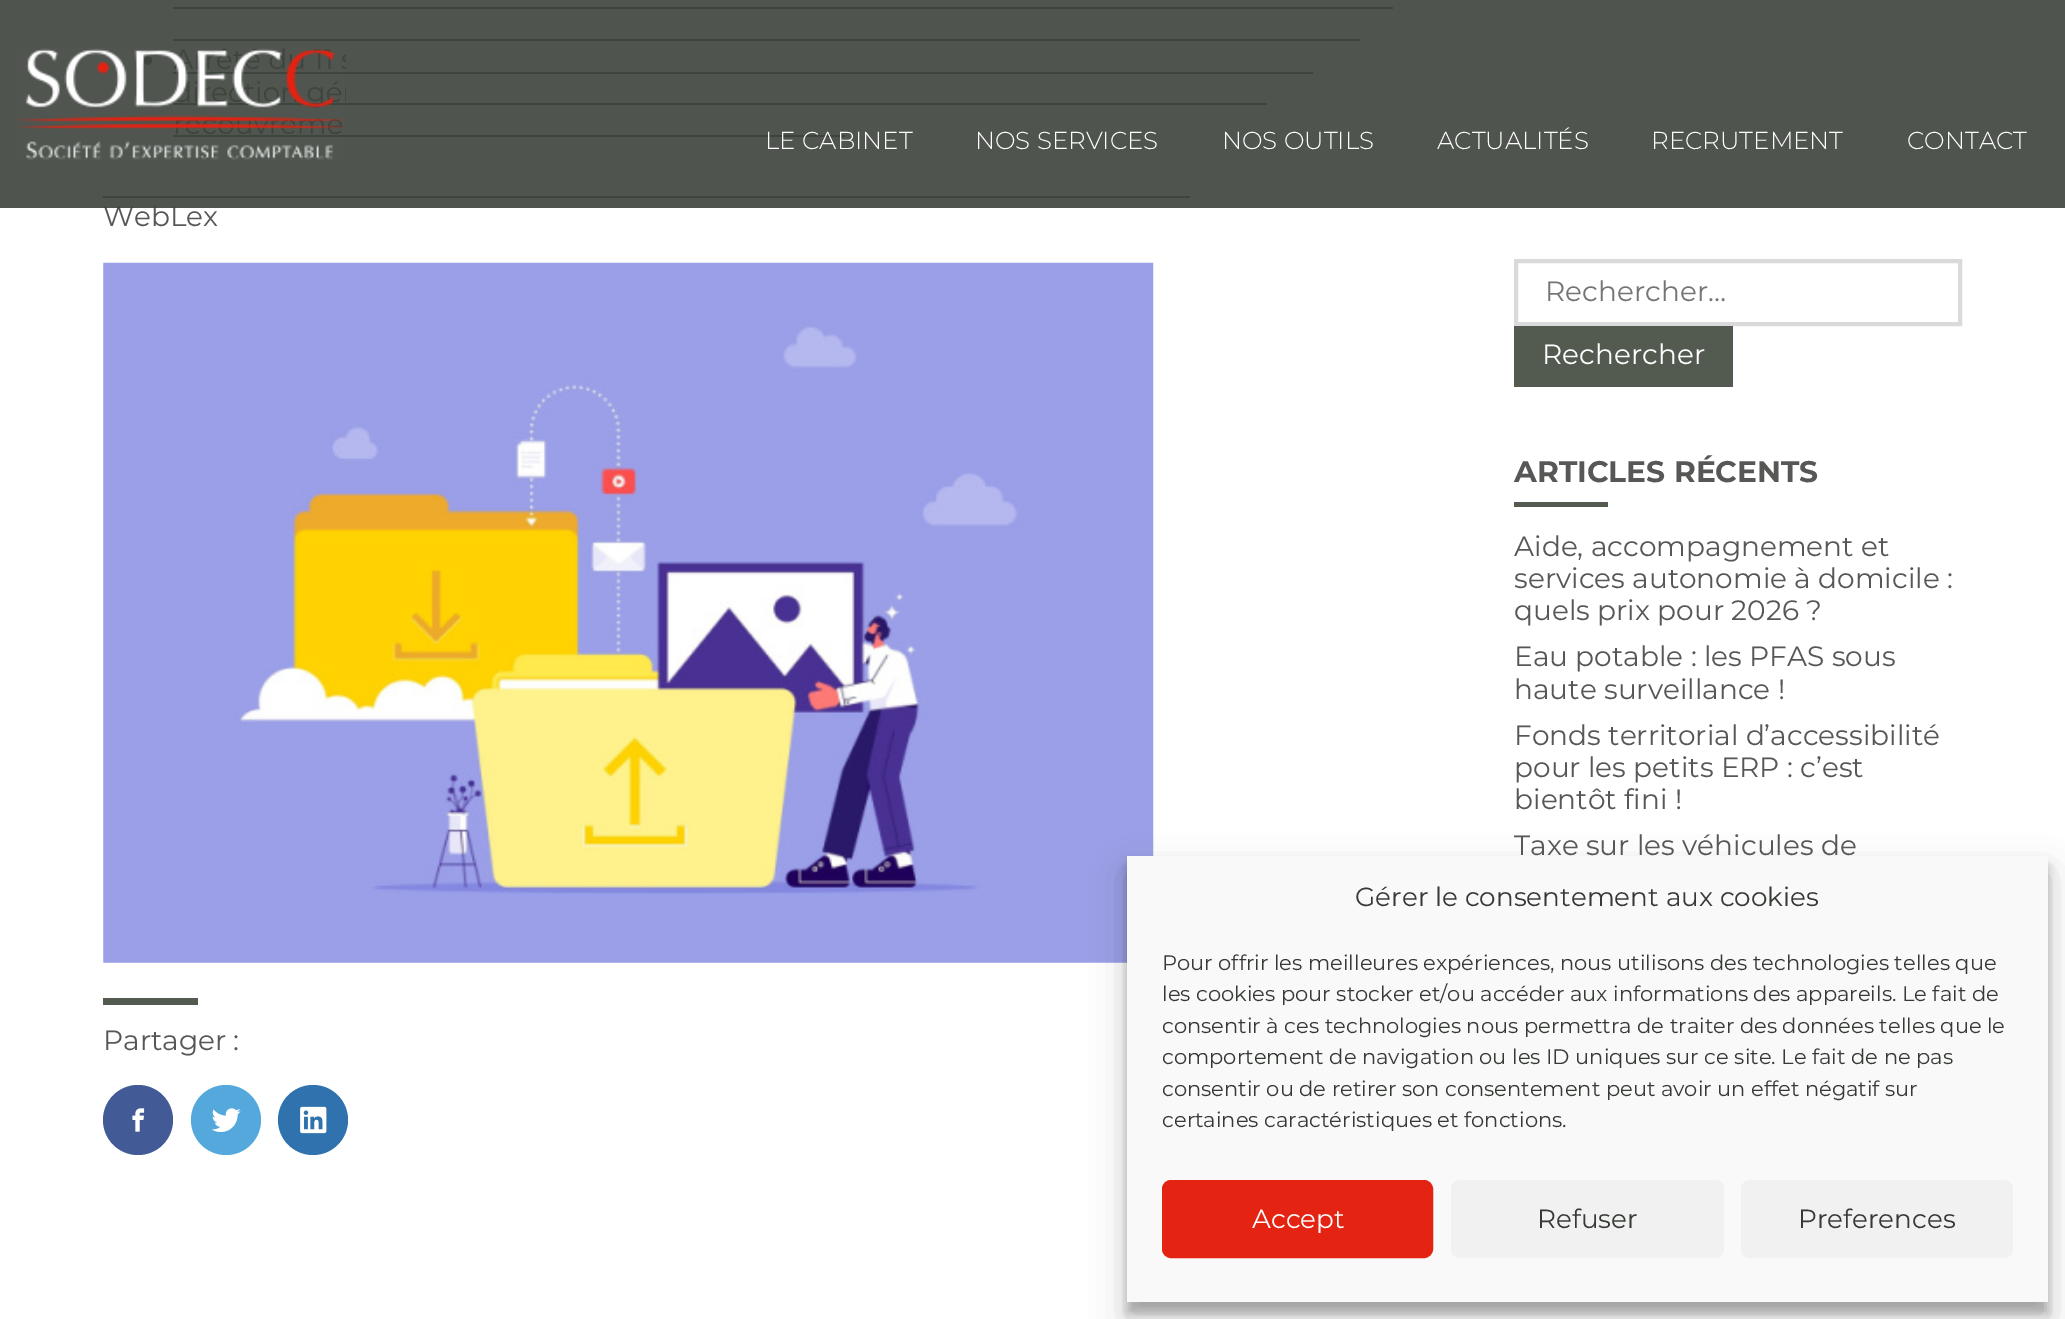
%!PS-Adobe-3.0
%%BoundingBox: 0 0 2065 1319
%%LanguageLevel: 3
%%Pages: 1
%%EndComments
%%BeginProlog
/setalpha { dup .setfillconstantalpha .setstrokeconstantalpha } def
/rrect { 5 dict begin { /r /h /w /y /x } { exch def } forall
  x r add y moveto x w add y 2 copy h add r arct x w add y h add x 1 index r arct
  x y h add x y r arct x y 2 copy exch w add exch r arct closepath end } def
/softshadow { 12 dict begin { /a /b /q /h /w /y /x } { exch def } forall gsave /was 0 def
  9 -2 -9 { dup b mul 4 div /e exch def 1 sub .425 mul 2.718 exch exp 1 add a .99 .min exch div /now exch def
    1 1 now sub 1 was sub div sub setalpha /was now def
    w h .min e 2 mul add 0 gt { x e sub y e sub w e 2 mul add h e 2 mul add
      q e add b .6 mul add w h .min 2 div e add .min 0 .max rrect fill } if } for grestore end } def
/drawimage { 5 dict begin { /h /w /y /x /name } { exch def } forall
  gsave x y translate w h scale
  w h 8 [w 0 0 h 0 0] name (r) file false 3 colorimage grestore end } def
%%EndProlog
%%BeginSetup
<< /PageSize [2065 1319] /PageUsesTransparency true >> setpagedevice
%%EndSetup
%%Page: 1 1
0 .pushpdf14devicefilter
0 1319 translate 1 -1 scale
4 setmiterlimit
1 setgray
0 0 2065 1319 rectfill
0.325 0.357 0.318 setrgbcolor
173 7 1220 2 rectfill
173 39 1187 2 rectfill
0.341 0.341 0.337 setrgbcolor
144 56 8 9 4 rrect fill
0.325 0.357 0.318 setrgbcolor
173 72 1140 2 rectfill
173 103 1094 2 rectfill
173 135 672 2 rectfill
103 196 1087 2 rectfill
(images/2.raw) 103 262 1051 701 drawimage
103 998 95 7 rectfill
0.259 0.357 0.588 setrgbcolor
newpath 138 1120 35 0 360 arc closepath fill
(images/3.raw) 132 1108 13 24 drawimage
0.329 0.659 0.863 setrgbcolor
newpath 226 1120 35 0 360 arc closepath fill
(images/4.raw) 211 1108 30 24 drawimage
0.188 0.447 0.678 setrgbcolor
newpath 313 1120 35 0 360 arc closepath fill
(images/5.raw) 300 1106 27 28 drawimage
0.855 setgray
4 setlinewidth
1516 261 444 63 rectstroke
0.325 0.357 0.318 setrgbcolor
1514 326 219 61 rectfill
1514 502 94 5 rectfill
0 setgray
1127 866 921 447 0 5 0.23 softshadow
1127 873 921 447 0 17.5 0.19 softshadow
0.976 setgray
1127 856 921 446 rectfill
0.894 0.137 0.075 setrgbcolor
1163 1181 269 76 8 rrect gsave fill grestore
2 setlinewidth
stroke
0.945 setgray
1451 1180 273 78 9 rrect fill
1741 1180 272 78 9 rrect fill
/Montserrat-Regular [28 0 0 -28 0 0] selectfont
0.341 0.341 0.337 setrgbcolor
103 226 moveto (WebLex) show
0.9 setalpha
0.235 0.259 0.231 setrgbcolor
0 0 2065 208 rectfill
/Montserrat-Light [24.5 0 0 -24.5 0 0] selectfont
1 setalpha
1 setgray
1222 149 moveto (NOS OUTILS) show
975 149 moveto (NOS SERVICES) show
1907 149 moveto (CONTACT) show
1651 149 moveto (RECRUTEMENT) show
1437 149 moveto (ACTUALITÉS) show
765 149 moveto (LE CABINET) show
(images/1.raw) 16 48 330 112 drawimage
/Montserrat-Regular [28 0 0 -28 0 0] selectfont
0.341 0.341 0.337 setrgbcolor
103 1050 moveto (Partager :) show
0.459 setgray
1545 301 moveto (Rechercher…) show
1 setgray
1542 364 moveto (Rechercher) show
/Montserrat-Bold [29.75 0 0 -29.75 0 0] selectfont
0.341 0.341 0.337 setrgbcolor
1514 482 moveto (ARTICLES RÉCENTS) show
/Montserrat-Regular [28 0 0 -28 0 0] selectfont
1514 556 moveto (Aide, accompagnement et) show
1514 588 moveto (services autonomie à domicile :) show
1514 620 moveto (quels prix pour 2026 ?) show
1514 666 moveto (Eau potable : les PFAS sous) show
1514 699 moveto (haute surveillance !) show
1514 745 moveto (Fonds territorial d’accessibilité) show
1514 777 moveto (pour les petits ERP : c’est) show
1514 809 moveto (bientôt fini !) show
1514 855 moveto (Taxe sur les véhicules de) show
/Montserrat-Regular [26.25 0 0 -26.25 0 0] selectfont
0.212 0.227 0.208 setrgbcolor
1355 906 moveto (Gérer le consentement aux cookies) show
/Montserrat-Regular [21 0 0 -21 0 0] selectfont
1162 970 moveto (Pour offrir les meilleures expériences, nous utilisons des technologies telles que) show
1162 1001 moveto (les cookies pour stocker et/ou accéder aux informations des appareils. Le fait de) show
1162 1033 moveto (consentir à ces technologies nous permettra de traiter des données telles que le) show
1162 1064 moveto (comportement de navigation ou les ID uniques sur ce site. Le fait de ne pas) show
1162 1096 moveto (consentir ou de retirer son consentement peut avoir un effet négatif sur) show
1162 1127 moveto (certaines caractéristiques et fonctions.) show
/Montserrat-Regular [26.25 0 0 -26.25 0 0] selectfont
1 setgray
1252 1228 moveto (Accept) show
0.212 0.227 0.208 setrgbcolor
1537 1228 moveto (Refuser) show
1798 1228 moveto (Preferences) show
.poppdf14devicefilter showpage
%%EOF
